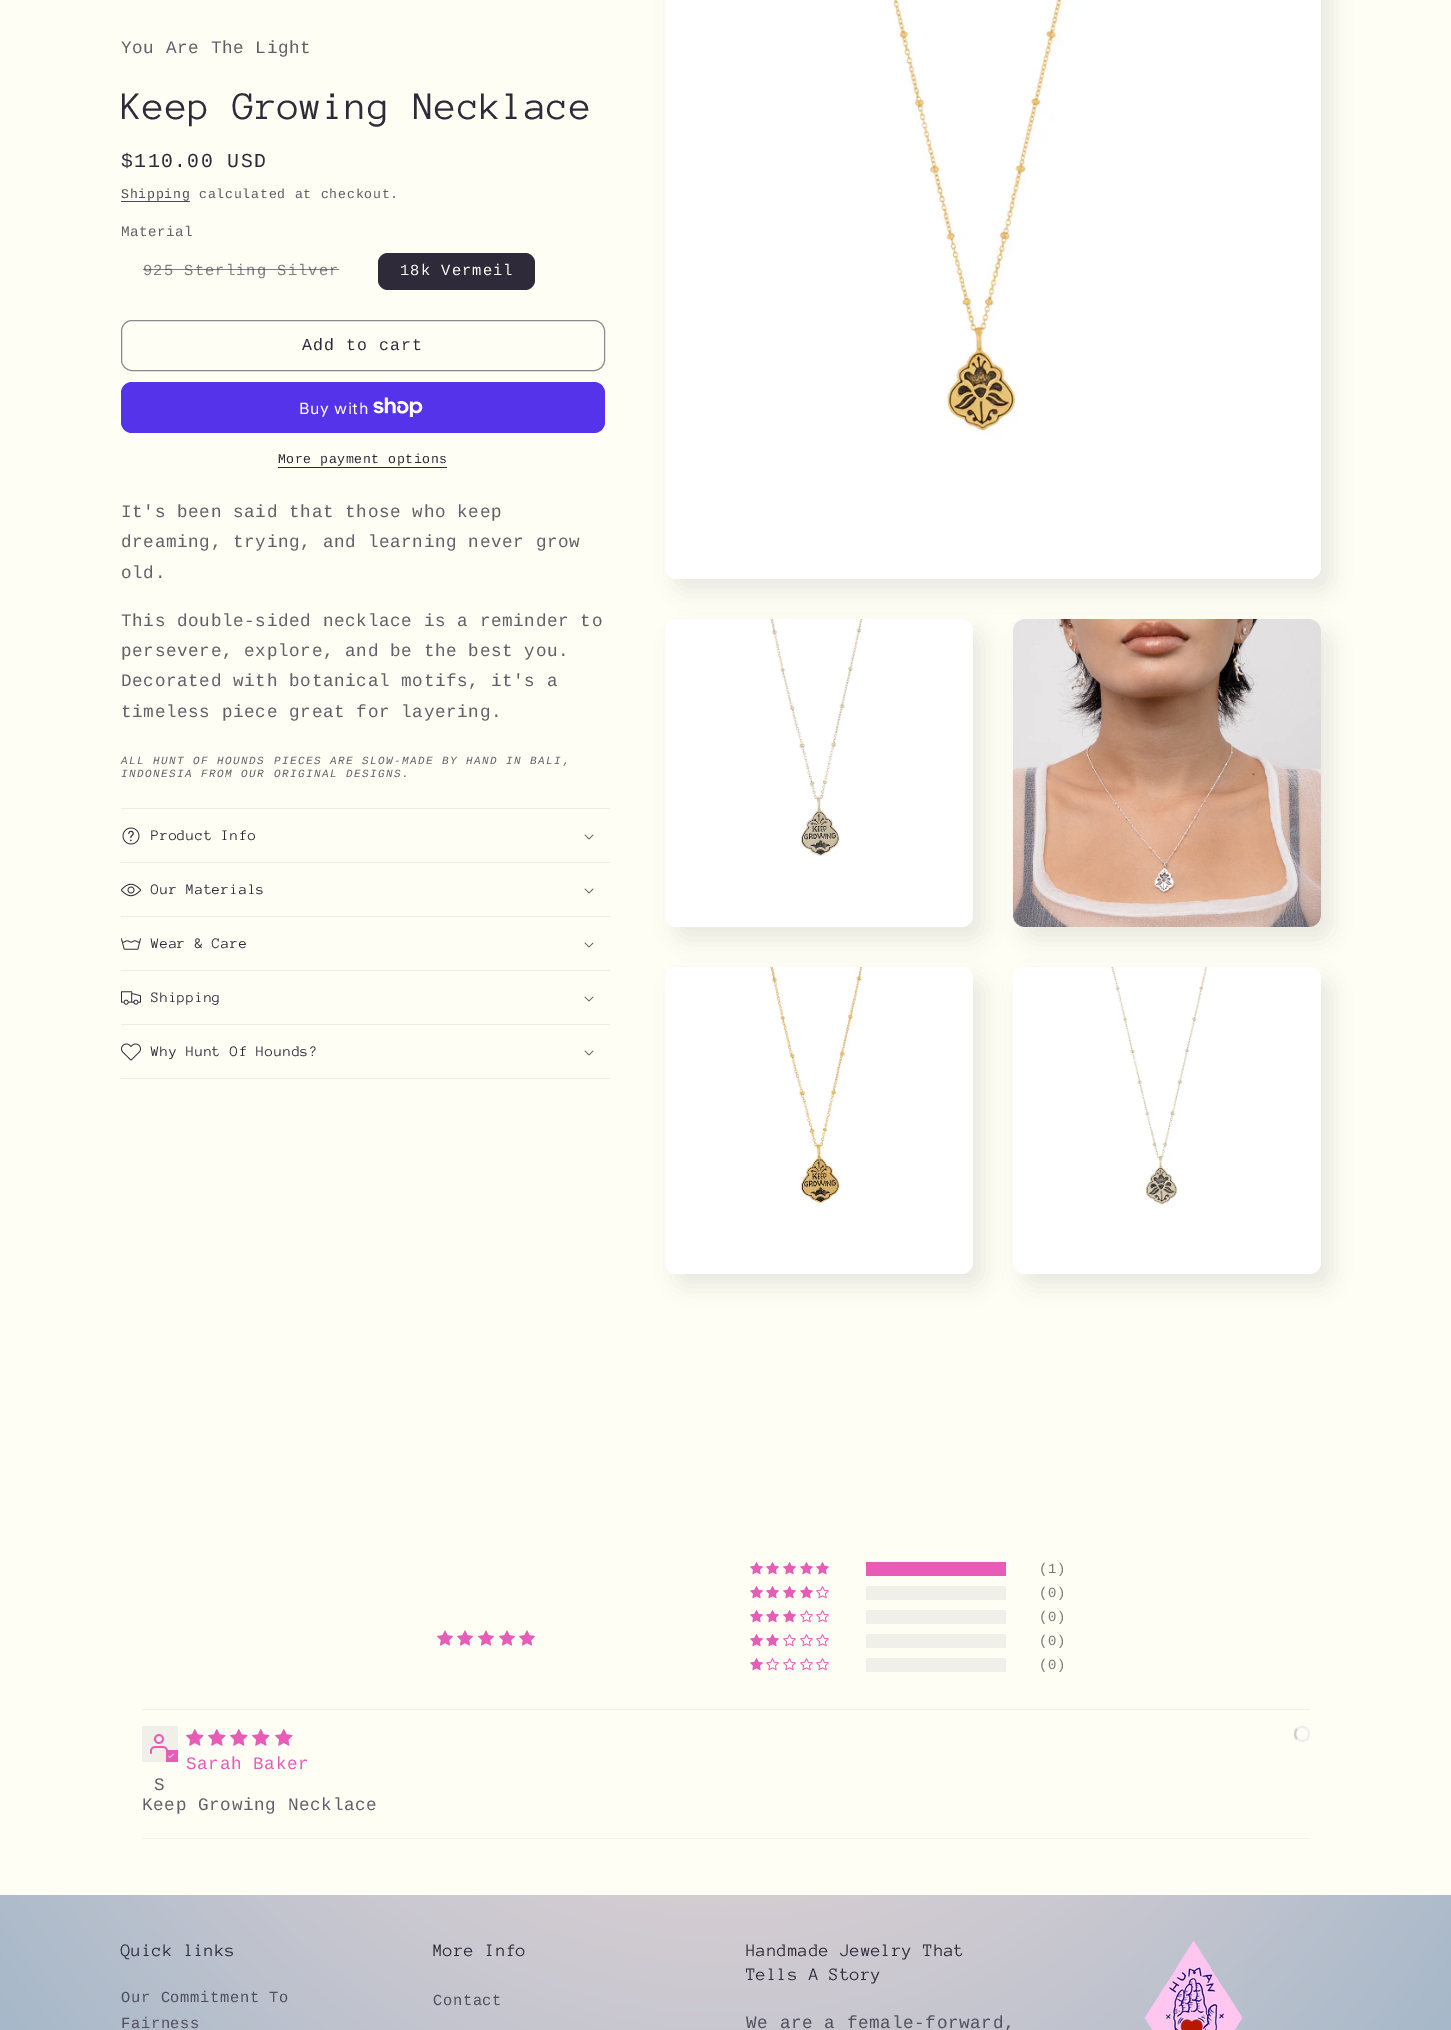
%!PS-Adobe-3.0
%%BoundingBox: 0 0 1451 2030
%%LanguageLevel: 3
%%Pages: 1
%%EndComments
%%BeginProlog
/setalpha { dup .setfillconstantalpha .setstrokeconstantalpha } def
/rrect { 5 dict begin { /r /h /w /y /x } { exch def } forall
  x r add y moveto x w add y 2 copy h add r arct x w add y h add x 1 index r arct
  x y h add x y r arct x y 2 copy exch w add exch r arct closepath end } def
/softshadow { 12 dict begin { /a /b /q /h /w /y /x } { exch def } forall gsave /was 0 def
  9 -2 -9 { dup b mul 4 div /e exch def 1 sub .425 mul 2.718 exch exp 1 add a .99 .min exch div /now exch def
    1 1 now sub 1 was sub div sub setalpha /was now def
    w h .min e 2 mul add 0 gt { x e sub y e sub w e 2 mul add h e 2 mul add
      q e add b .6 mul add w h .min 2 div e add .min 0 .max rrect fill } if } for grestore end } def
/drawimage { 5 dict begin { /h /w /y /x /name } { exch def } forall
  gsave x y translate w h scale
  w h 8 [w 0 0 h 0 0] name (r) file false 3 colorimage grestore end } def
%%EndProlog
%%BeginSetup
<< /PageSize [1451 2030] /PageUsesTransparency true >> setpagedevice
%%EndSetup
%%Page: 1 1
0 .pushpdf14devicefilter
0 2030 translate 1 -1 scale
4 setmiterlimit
1 0.996 0.957 setrgbcolor
0 0 1451 2030 rectfill
0.302 0.29 0.333 setrgbcolor
121 201 69 1 rectfill
0.18 0.165 0.224 setrgbcolor
378 253 157 37 10 rrect fill
0.549 0.537 0.553 setrgbcolor
121.5 320.5 483 50 10.5 rrect stroke
0.329 0.2 0.922 setrgbcolor
121 382 484 51 11 rrect fill
(images/1.raw) 373 397 50 20 drawimage
0.18 0.165 0.224 setrgbcolor
278 467 169 1 rectfill
0.933 0.929 0.898 setrgbcolor
121 808 489 1 rectfill
121 862 489 1 rectfill
(images/2.raw) 122 827 18 18 drawimage
(images/3.raw) 584 834 10 6 drawimage
121 916 489 1 rectfill
(images/4.raw) 121 883 20 14 drawimage
(images/3.raw) 584 888 10 6 drawimage
121 970 489 1 rectfill
(images/5.raw) 121 938 20 12 drawimage
(images/3.raw) 584 942 10 6 drawimage
121 1024 489 1 rectfill
(images/6.raw) 121 991 20 14 drawimage
(images/3.raw) 584 996 10 6 drawimage
121 1078 489 1 rectfill
(images/7.raw) 121 1043 20 18 drawimage
(images/3.raw) 584 1050 10 6 drawimage
0.18 0.165 0.224 setrgbcolor
675 -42 656 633 12 10 0.1 softshadow
(images/8.raw) 665 0 656 579 drawimage
675 631 308 308 12 10 0.1 softshadow
(images/9.raw) 665 619 308 308 drawimage
1023 631 308 308 12 10 0.1 softshadow
(images/10.raw) 1013 619 308 308 drawimage
675 979 308 307 12 10 0.1 softshadow
(images/11.raw) 665 967 308 307 drawimage
1023 979 308 307 12 10 0.1 softshadow
(images/12.raw) 1013 967 308 307 drawimage
(images/13.raw) 437 1630 16 16 drawimage
(images/13.raw) 457 1630 16 16 drawimage
(images/13.raw) 478 1630 16 16 drawimage
(images/13.raw) 499 1630 16 16 drawimage
(images/13.raw) 519 1630 16 16 drawimage
(images/14.raw) 750 1562 13 13 drawimage
(images/14.raw) 766 1562 13 13 drawimage
(images/14.raw) 783 1562 13 13 drawimage
(images/14.raw) 800 1562 13 13 drawimage
(images/14.raw) 816 1562 13 13 drawimage
0.902 0.361 0.718 setrgbcolor
866 1562 140 14 rectfill
(images/14.raw) 750 1586 13 13 drawimage
(images/14.raw) 766 1586 13 13 drawimage
(images/14.raw) 783 1586 13 13 drawimage
(images/14.raw) 800 1586 13 13 drawimage
(images/15.raw) 816 1586 13 13 drawimage
0.941 0.937 0.918 setrgbcolor
866 1586 140 14 rectfill
(images/14.raw) 750 1610 13 13 drawimage
(images/14.raw) 766 1610 13 13 drawimage
(images/14.raw) 783 1610 13 13 drawimage
(images/15.raw) 800 1610 13 13 drawimage
(images/15.raw) 816 1610 13 13 drawimage
866 1610 140 14 rectfill
(images/14.raw) 750 1634 13 13 drawimage
(images/14.raw) 766 1634 13 13 drawimage
(images/15.raw) 783 1634 13 13 drawimage
(images/15.raw) 800 1634 13 13 drawimage
(images/15.raw) 816 1634 13 13 drawimage
866 1634 140 14 rectfill
(images/14.raw) 750 1658 13 13 drawimage
(images/15.raw) 766 1658 13 13 drawimage
(images/15.raw) 783 1658 13 13 drawimage
(images/15.raw) 800 1658 13 13 drawimage
(images/15.raw) 816 1658 13 13 drawimage
866 1658 140 14 rectfill
0.992 0.933 0.933 setrgbcolor
142 1709 1168 1 rectfill
(images/16.raw) 186 1729 18 17 drawimage
(images/16.raw) 208 1729 18 17 drawimage
(images/16.raw) 230 1729 18 17 drawimage
(images/16.raw) 252 1729 18 17 drawimage
(images/16.raw) 275 1729 18 17 drawimage
0.933 setgray
2 setlinewidth
newpath 1297 1729 moveto 1298.5 1727.5 1301 1726.5 1303.5 1727 curveto 1311.5 1729 1310.5 1741 1302 1741 curveto 1300 1741 1298.5 1740.5 1297 1739 curveto stroke
0.8 setgray
newpath 1297 1739 moveto 1294.5 1736.5 1294.5 1731.5 1297 1729 curveto stroke
0.941 0.937 0.918 setrgbcolor
142 1726 36 36 rectfill
(images/17.raw) 150 1734 18 20 drawimage
0.902 0.361 0.718 setrgbcolor
166 1750 12 12 rectfill
(images/18.raw) 168 1753 6 5 drawimage
0.992 0.933 0.933 setrgbcolor
142 1838 1168 1 rectfill
gsave newpath 0 1895 moveto 1451 1895 lineto 1451 2030 lineto 0 2030 lineto closepath clip newpath 726 1015 translate 1026 1435 scale
<< /ShadingType 3 /ColorSpace /DeviceRGB /Coords [0 0 0 0 0 1] /Extend [true true] /Function << /FunctionType 3 /Domain [0 1] /Functions [<< /FunctionType 2 /Domain [0 1] /C0 [1 0.898 0.898] /C1 [1 0.878 0.855] /N 1 >> << /FunctionType 2 /Domain [0 1] /C0 [1 0.878 0.855] /C1 [0.651 0.722 0.788] /N 1 >>] /Bounds [0.25] /Encode [0 1 0 1] >> >> shfill grestore
(images/19.raw) 1144 1940 99 90 drawimage
/LiberationMono-Regular [17.6 0 0 -17.6 0 0] selectfont
0.384 0.373 0.408 setrgbcolor
121 53 moveto 0.65 0 (You Are The Light) ashow
/AnonymousPro-Regular [40 0 0 -40 0 0] selectfont
0.18 0.165 0.224 setrgbcolor
121 119 moveto 0.6 0 (Keep Growing Necklace) ashow
/LiberationMono-Regular [19.75 0 0 -19.75 0 0] selectfont
121 167 moveto 1.43 0 ($110.00 USD) ashow
/LiberationMono-Regular [13.25 0 0 -13.25 0 0] selectfont
0.302 0.29 0.333 setrgbcolor
121 198 moveto 0.75 0 (Shipping) ashow
0.384 0.373 0.408 setrgbcolor
199 198 moveto 0.75 0 (calculated at checkout.) ashow
/LiberationMono-Regular [14.25 0 0 -14.25 0 0] selectfont
121 236 moveto 0.5 0 (Material) ashow
/LiberationMono-Regular [15.4 0 0 -15.4 0 0] selectfont
0.51 0.498 0.518 setrgbcolor
143 275 moveto 1.1 0 (925 Sterling Silver) ashow
0.6 setalpha
0.18 0.165 0.224 setrgbcolor
143 269 196 1 rectfill
1 setalpha
1 0.996 0.957 setrgbcolor
400 275 moveto 1.1 0 (18k Vermeil) ashow
/LiberationMono-Regular [16.5 0 0 -16.5 0 0] selectfont
0.18 0.165 0.224 setrgbcolor
302 350 moveto 1.1 0 (Add to cart) ashow
/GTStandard-Regular [16 0 0 -16 0 0] selectfont
1 setgray
299 414 moveto 0.65 0 (Buy with) ashow
/LiberationMono-Regular [13.25 0 0 -13.25 0 0] selectfont
0.18 0.165 0.224 setrgbcolor
278 463 moveto 0.55 0 (More payment options) ashow
/LiberationMono-Regular [17.6 0 0 -17.6 0 0] selectfont
0.384 0.373 0.408 setrgbcolor
121 517 moveto 0.65 0 (It's been said that those who keep) ashow
121 547 moveto 0.65 0 (dreaming, trying, and learning never grow) ashow
121 578 moveto 0.65 0 (old.) ashow
121 626 moveto 0.65 0 (This double-sided necklace is a reminder to) ashow
121 656 moveto 0.65 0 (persevere, explore, and be the best you.) ashow
121 686 moveto 0.65 0 (Decorated with botanical motifs, it's a) ashow
121 717 moveto 0.65 0 (timeless piece great for layering.) ashow
/LiberationMono-Italic [11 0 0 -11 0 0] selectfont
121 764 moveto 1.43 0 (ALL HUNT OF HOUNDS PIECES ARE SLOW-MADE BY HAND IN BALI,) ashow
121 777 moveto 1.43 0 (INDONESIA FROM OUR ORIGINAL DESIGNS.) ashow
/AnonymousPro-Regular [15 0 0 -15 0 0] selectfont
0.18 0.165 0.224 setrgbcolor
151 840 moveto 0.6 0 (Product Info) ashow
151 894 moveto 0.6 0 (Our Materials) ashow
151 948 moveto 0.6 0 (Wear & Care) ashow
151 1002 moveto 0.6 0 (Shipping) ashow
151 1056 moveto 0.6 0 (Why Hunt Of Hounds?) ashow
/LiberationMono-Regular [14 0 0 -14 0 0] selectfont
0.482 setgray
1039 1573 moveto 0.65 0 (\(1\)) ashow
1039 1597 moveto 0.65 0 (\(0\)) ashow
1039 1621 moveto 0.65 0 (\(0\)) ashow
1039 1645 moveto 0.65 0 (\(0\)) ashow
1039 1669 moveto 0.65 0 (\(0\)) ashow
/LiberationMono-Regular [17.6 0 0 -17.6 0 0] selectfont
0.902 0.361 0.718 setrgbcolor
186 1769 moveto 0.65 0 (Sarah Baker) ashow
0.384 0.373 0.408 setrgbcolor
154 1790 moveto 0.65 0 (S) ashow
142 1810 moveto 0.65 0 (Keep Growing Necklace) ashow
/AnonymousPro-Regular [18 0 0 -18 0 0] selectfont
0.18 0.165 0.224 setrgbcolor
121 1956 moveto 0.6 0 (Quick links) ashow
/LiberationMono-Regular [15.4 0 0 -15.4 0 0] selectfont
0.314 0.31 0.369 setrgbcolor
121 2002 moveto 0.65 0 (Our Commitment To) ashow
121 2028 moveto 0.65 0 (Fairness) ashow
/AnonymousPro-Regular [18 0 0 -18 0 0] selectfont
0.18 0.165 0.224 setrgbcolor
433 1956 moveto 0.6 0 (More Info) ashow
/LiberationMono-Regular [15.4 0 0 -15.4 0 0] selectfont
0.314 0.31 0.369 setrgbcolor
433 2005 moveto 0.65 0 (Contact) ashow
/AnonymousPro-Regular [18 0 0 -18 0 0] selectfont
0.18 0.165 0.224 setrgbcolor
746 1956 moveto 0.6 0 (Handmade Jewelry That) ashow
746 1980 moveto 0.6 0 (Tells A Story) ashow
/LiberationMono-Regular [17.6 0 0 -17.6 0 0] selectfont
0.314 0.31 0.369 setrgbcolor
746 2028 moveto 0.65 0 (We are a female-forward,) ashow
.poppdf14devicefilter showpage
%%EOF
